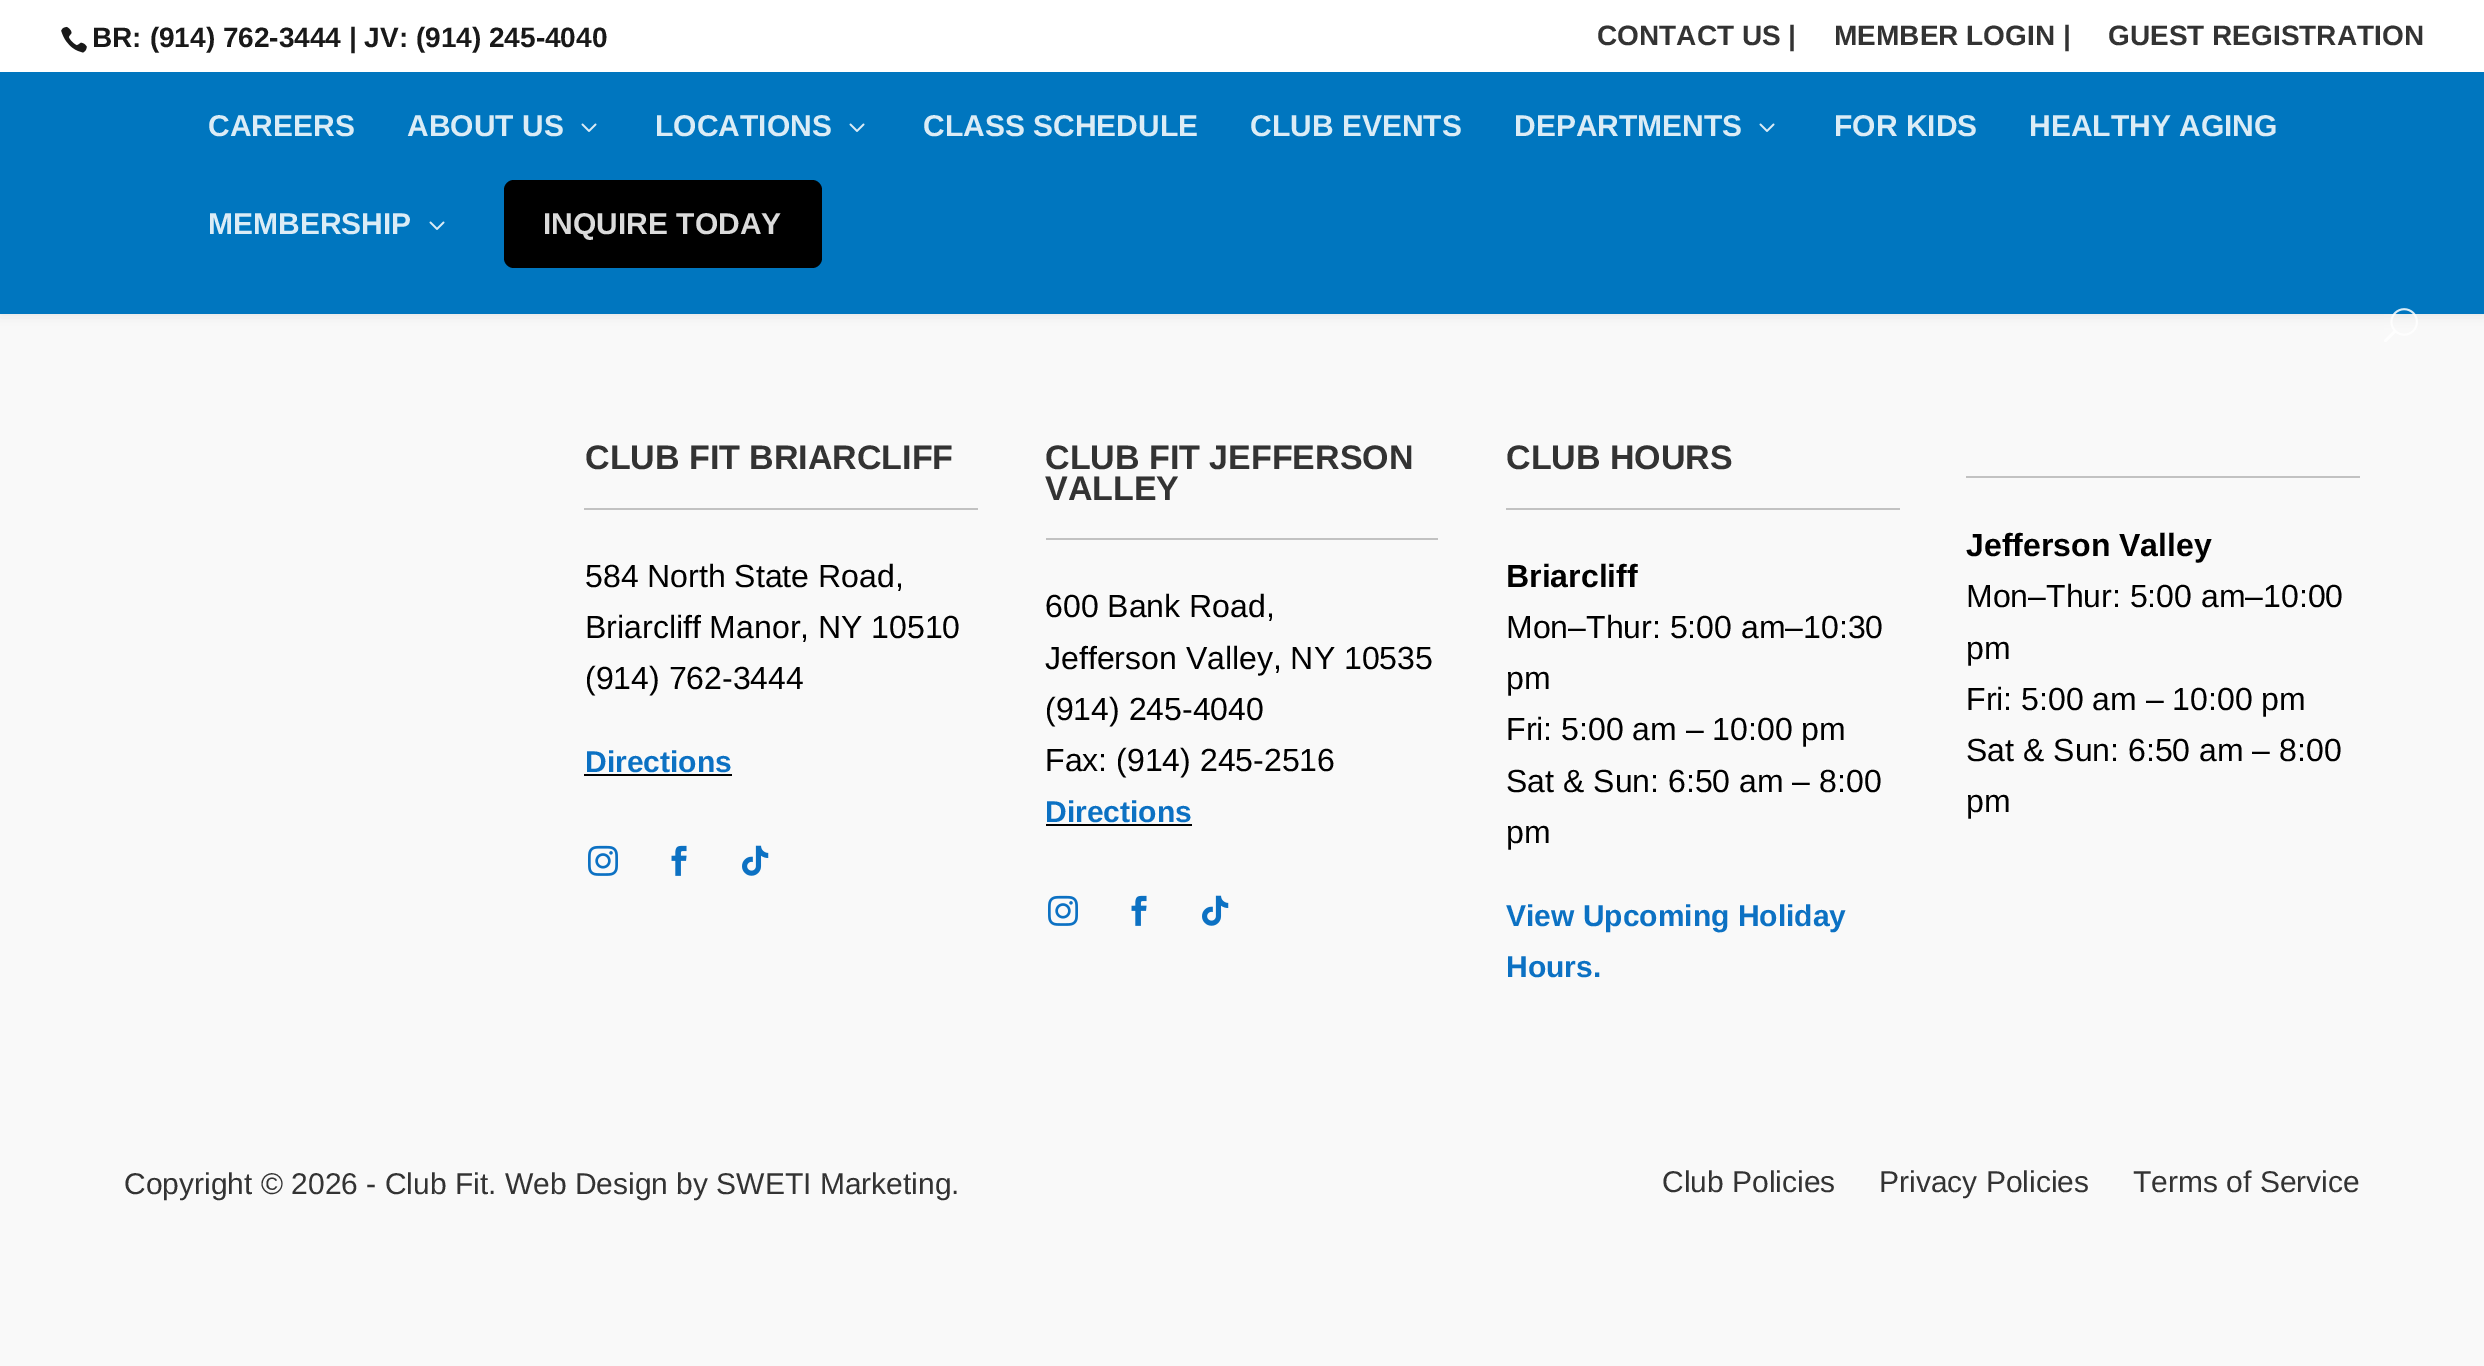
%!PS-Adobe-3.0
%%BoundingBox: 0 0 2484 1366
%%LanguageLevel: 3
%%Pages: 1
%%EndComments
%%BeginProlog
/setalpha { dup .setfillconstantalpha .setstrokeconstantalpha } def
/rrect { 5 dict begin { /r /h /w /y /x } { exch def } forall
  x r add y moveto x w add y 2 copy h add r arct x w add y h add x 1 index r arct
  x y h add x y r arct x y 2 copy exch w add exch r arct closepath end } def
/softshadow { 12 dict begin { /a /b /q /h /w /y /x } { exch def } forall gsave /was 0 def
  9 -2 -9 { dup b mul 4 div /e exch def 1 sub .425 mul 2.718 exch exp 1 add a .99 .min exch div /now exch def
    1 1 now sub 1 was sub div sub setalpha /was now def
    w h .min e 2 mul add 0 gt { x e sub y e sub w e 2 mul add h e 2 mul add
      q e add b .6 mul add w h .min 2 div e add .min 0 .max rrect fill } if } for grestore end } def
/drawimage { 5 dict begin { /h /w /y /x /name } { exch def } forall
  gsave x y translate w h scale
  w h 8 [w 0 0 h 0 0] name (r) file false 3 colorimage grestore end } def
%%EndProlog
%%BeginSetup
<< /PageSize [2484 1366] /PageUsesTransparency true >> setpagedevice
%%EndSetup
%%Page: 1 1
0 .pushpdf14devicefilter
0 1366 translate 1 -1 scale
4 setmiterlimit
0.976 setgray
0 0 2484 1366 rectfill
0 setgray
0 72 2484 242 0 7 0.1 softshadow
1 setgray
0 0 2484 72 rectfill
(images/1.raw) 61 26 26 27 drawimage
0 0.463 0.749 setrgbcolor
0 72 2484 242 rectfill
(images/2.raw) 581 123 16 9 drawimage
(images/2.raw) 849 123 16 9 drawimage
(images/2.raw) 1759 123 16 9 drawimage
(images/2.raw) 429 221 16 9 drawimage
0 setgray
504 180 318 88 10 rrect fill
(images/3.raw) 2384 308 34 34 drawimage
0.761 setgray
584 508 394 2 rectfill
0 setgray
584 774 148 2 rectfill
(images/4.raw) 588 845 30 31 drawimage
(images/5.raw) 671 845 16 31 drawimage
(images/6.raw) 742 845 27 31 drawimage
0.761 setgray
1046 538 392 2 rectfill
0 setgray
1046 824 146 2 rectfill
(images/4.raw) 1048 895 30 31 drawimage
(images/5.raw) 1131 895 16 31 drawimage
(images/6.raw) 1202 895 27 31 drawimage
0.761 setgray
1506 508 394 2 rectfill
1966 476 394 2 rectfill
/LiberationSans-Bold [28 0 0 -28 0 0] selectfont
0.098 setgray
92 47 moveto (BR: \(914\) 762-3444 | JV: \(914\) 245-4040) show
0.2 setgray
1597 45 moveto (CONTACT US |) show
1834 45 moveto (MEMBER LOGIN |) show
2108 45 moveto (GUEST REGISTRATION) show
/LiberationSans-Bold [30 0 0 -30 0 0] selectfont
0.859 0.925 0.965 setrgbcolor
208 136 moveto (CAREERS) show
407 136 moveto (ABOUT US) show
655 136 moveto (LOCATIONS) show
923 136 moveto (CLASS SCHEDULE) show
1250 136 moveto (CLUB EVENTS) show
1514 136 moveto (DEPARTMENTS) show
1834 136 moveto (FOR KIDS) show
2029 136 moveto (HEALTHY AGING) show
208 234 moveto (MEMBERSHIP) show
0.859 setgray
543 234 moveto (INQUIRE TODAY) show
/LiberationSans-Bold [34 0 0 -34 0 0] selectfont
0.2 setgray
585 469 moveto (CLUB FIT BRIARCLIFF) show
/LiberationSans-Regular [32 0 0 -32 0 0] selectfont
0 setgray
585 587 moveto (584 North State Road,) show
585 638 moveto (Briarcliff Manor, NY 10510) show
585 689 moveto (\(914\) 762-3444) show
/LiberationSans-Bold [30 0 0 -30 0 0] selectfont
0.047 0.443 0.765 setrgbcolor
585 772 moveto (Directions) show
/LiberationSans-Bold [34 0 0 -34 0 0] selectfont
0.2 setgray
1045 469 moveto (CLUB FIT JEFFERSON) show
1045 500 moveto (VALLEY) show
/LiberationSans-Regular [32 0 0 -32 0 0] selectfont
0 setgray
1045 617 moveto (600 Bank Road,) show
1045 669 moveto (Jefferson Valley, NY 10535) show
1045 720 moveto (\(914\) 245-4040) show
1045 771 moveto (Fax: \(914\) 245-2516) show
/LiberationSans-Bold [30 0 0 -30 0 0] selectfont
0.047 0.443 0.765 setrgbcolor
1045 822 moveto (Directions) show
/LiberationSans-Bold [34 0 0 -34 0 0] selectfont
0.2 setgray
1506 469 moveto (CLUB HOURS) show
/LiberationSans-Bold [32 0 0 -32 0 0] selectfont
0 setgray
1506 587 moveto (Briarcliff) show
/LiberationSans-Regular [32 0 0 -32 0 0] selectfont
1506 638 moveto (Mon–Thur: 5:00 am–10:30) show
1506 689 moveto (pm) show
1506 740 moveto (Fri: 5:00 am – 10:00 pm) show
1506 792 moveto (Sat & Sun: 6:50 am – 8:00) show
1506 843 moveto (pm) show
/LiberationSans-Bold [30 0 0 -30 0 0] selectfont
0.047 0.443 0.765 setrgbcolor
1506 926 moveto (View Upcoming Holiday) show
1506 977 moveto (Hours.) show
/LiberationSans-Bold [32 0 0 -32 0 0] selectfont
0 setgray
1966 556 moveto (Jefferson Valley) show
/LiberationSans-Regular [32 0 0 -32 0 0] selectfont
1966 607 moveto (Mon–Thur: 5:00 am–10:00) show
1966 659 moveto (pm) show
1966 710 moveto (Fri: 5:00 am – 10:00 pm) show
1966 761 moveto (Sat & Sun: 6:50 am – 8:00) show
1966 812 moveto (pm) show
/LiberationSans-Regular [30 0 0 -30 0 0] selectfont
0.2 setgray
124 1194 moveto (Copyright © 2026 - Club Fit. Web Design by SWETI Marketing.) show
1662 1192 moveto (Club Policies) show
1879 1192 moveto (Privacy Policies) show
2133 1192 moveto (Terms of Service) show
.poppdf14devicefilter showpage
%%EOF
